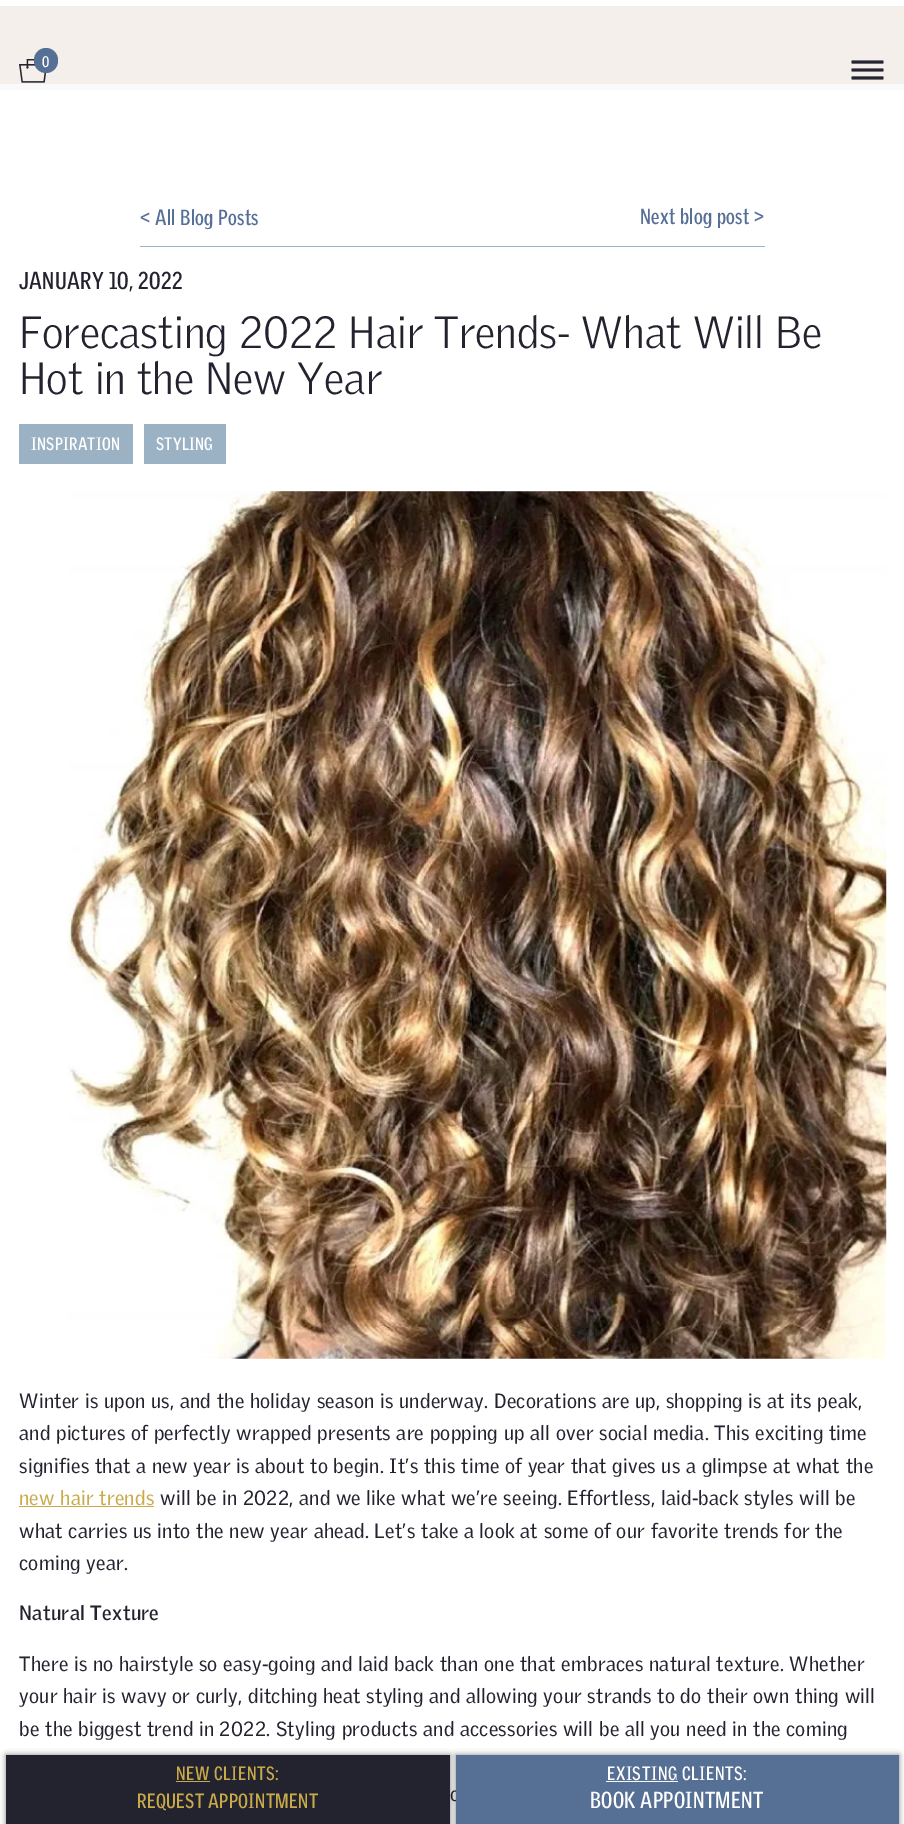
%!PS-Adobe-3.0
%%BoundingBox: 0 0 904 1824
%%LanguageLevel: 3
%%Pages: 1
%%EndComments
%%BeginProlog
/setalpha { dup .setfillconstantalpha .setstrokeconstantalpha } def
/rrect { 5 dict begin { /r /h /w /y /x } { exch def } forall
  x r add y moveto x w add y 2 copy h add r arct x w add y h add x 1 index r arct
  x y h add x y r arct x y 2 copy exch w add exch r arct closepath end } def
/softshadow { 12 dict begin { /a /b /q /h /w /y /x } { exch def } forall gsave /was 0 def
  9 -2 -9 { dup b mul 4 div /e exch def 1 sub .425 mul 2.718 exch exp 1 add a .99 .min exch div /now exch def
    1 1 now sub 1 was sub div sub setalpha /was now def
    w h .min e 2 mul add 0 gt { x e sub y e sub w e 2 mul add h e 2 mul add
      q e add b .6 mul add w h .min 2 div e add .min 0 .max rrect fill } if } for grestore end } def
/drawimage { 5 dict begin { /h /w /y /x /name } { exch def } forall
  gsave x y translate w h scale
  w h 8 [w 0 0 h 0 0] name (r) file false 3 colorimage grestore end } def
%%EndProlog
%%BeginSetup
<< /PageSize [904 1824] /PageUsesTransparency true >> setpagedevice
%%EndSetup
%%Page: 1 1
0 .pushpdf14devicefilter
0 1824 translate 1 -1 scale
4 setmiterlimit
1 setgray
0 0 904 1824 rectfill
0.957 0.937 0.922 setrgbcolor
0 6 904 78 rectfill
0.98 setgray
0 84 904 6 rectfill
(images/1.raw) 19 59 28 24 drawimage
0.333 0.439 0.58 setrgbcolor
34 48 24 25 12 rrect fill
(images/2.raw) 851 60 33 20 drawimage
0 setgray
6 1755 444 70 0 3 0.5 softshadow
0.137 0.133 0.184 setrgbcolor
6 1755 444 69 rectfill
0.784 0.667 0.286 setrgbcolor
176 1781 34 1 rectfill
0 setgray
456 1755 443 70 0 3 0.5 softshadow
0.608 0.694 0.769 setrgbcolor
140 246 625 1 rectfill
19 424 114 40 rectfill
144 424 82 40 rectfill
(images/3.raw) 67 491 820 868 drawimage
0.784 0.667 0.286 setrgbcolor
19 1506 135 1 rectfill
/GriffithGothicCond-Bold [15 0 0 -15 0 0] selectfont
1 setgray
42 67 moveto 0.6 0 (0) ashow
/GriffithGothicCond-Bold [18.75 0 0 -18.75 0 0] selectfont
0.784 0.667 0.286 setrgbcolor
176 1780 moveto 0.6 0 (NEW CLIENTS:) ashow
/GriffithGothicCond-Bold [20 0 0 -20 0 0] selectfont
137 1808 moveto 0.31 0 (REQUEST APPOINTMENT) ashow
/GriffithGothicCond-Bold [21.25 0 0 -21.25 0 0] selectfont
0.337 0.435 0.592 setrgbcolor
140 225 moveto 0.31 0 (< All Blog Posts) ashow
640 224 moveto 0.31 0 (Next blog post >) ashow
/GriffithGothicCond-Bold [23.75 0 0 -23.75 0 0] selectfont
0.137 0.133 0.184 setrgbcolor
19 289 moveto 0.31 0 (JANUARY 10, 2022) ashow
/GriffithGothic-Light [43.75 0 0 -43.75 0 0] selectfont
19 348 moveto (Forecasting 2022 Hair Trends- What Will Be) show
19 394 moveto (Hot in the New Year) show
/GriffithGothicCond-Bold [17.5 0 0 -17.5 0 0] selectfont
1 setgray
31 450 moveto 0.31 0 (INSPIRATION) ashow
156 450 moveto 0.31 0 (STYLING) ashow
/GriffithGothic-Regular [20 0 0 -20 0 0] selectfont
0.137 0.133 0.184 setrgbcolor
19 1408 moveto 0.31 0 (Winter is upon us, and the holiday season is underway. Decorations are up, shopping is at its peak,) ashow
19 1440 moveto 0.31 0 (and pictures of perfectly wrapped presents are popping up all over social media. This exciting time) ashow
19 1473 moveto 0.31 0 (signifies that a new year is about to begin. It’s this time of year that gives us a glimpse at what the) ashow
0.784 0.667 0.286 setrgbcolor
19 1505 moveto 0.31 0 (new hair trends) ashow
0.137 0.133 0.184 setrgbcolor
160 1505 moveto 0.31 0 (will be in 2022, and we like what we’re seeing. Effortless, laid-back styles will be) ashow
19 1538 moveto 0.31 0 (what carries us into the new year ahead. Let’s take a look at some of our favorite trends for the) ashow
19 1570 moveto 0.31 0 (coming year.) ashow
/GriffithGothic-Bold [20 0 0 -20 0 0] selectfont
19 1620 moveto 0.31 0 (Natural Texture) ashow
/GriffithGothic-Regular [20 0 0 -20 0 0] selectfont
19 1671 moveto 0.31 0 (There is no hairstyle so easy-going and laid back than one that embraces natural texture. Whether) ashow
19 1703 moveto 0.31 0 (your hair is wavy or curly, ditching heat styling and allowing your strands to do their own thing will) ashow
19 1736 moveto 0.31 0 (be the biggest trend in 2022. Styling products and accessories will be all you need in the coming) ashow
450 1801 moveto 0.31 0 (c) ashow
0.333 0.439 0.58 setrgbcolor
456 1755 443 69 rectfill
/GriffithGothicCond-Bold [22.5 0 0 -22.5 0 0] selectfont
1 setgray
590 1808 moveto 0.31 0 (BOOK APPOINTMENT) ashow
/GriffithGothicCond-Bold [18.75 0 0 -18.75 0 0] selectfont
607 1780 moveto 0.6 0 (EXISTING CLIENTS:) ashow
0.98 setgray
606 1781 72 1 rectfill
.poppdf14devicefilter showpage
%%EOF
